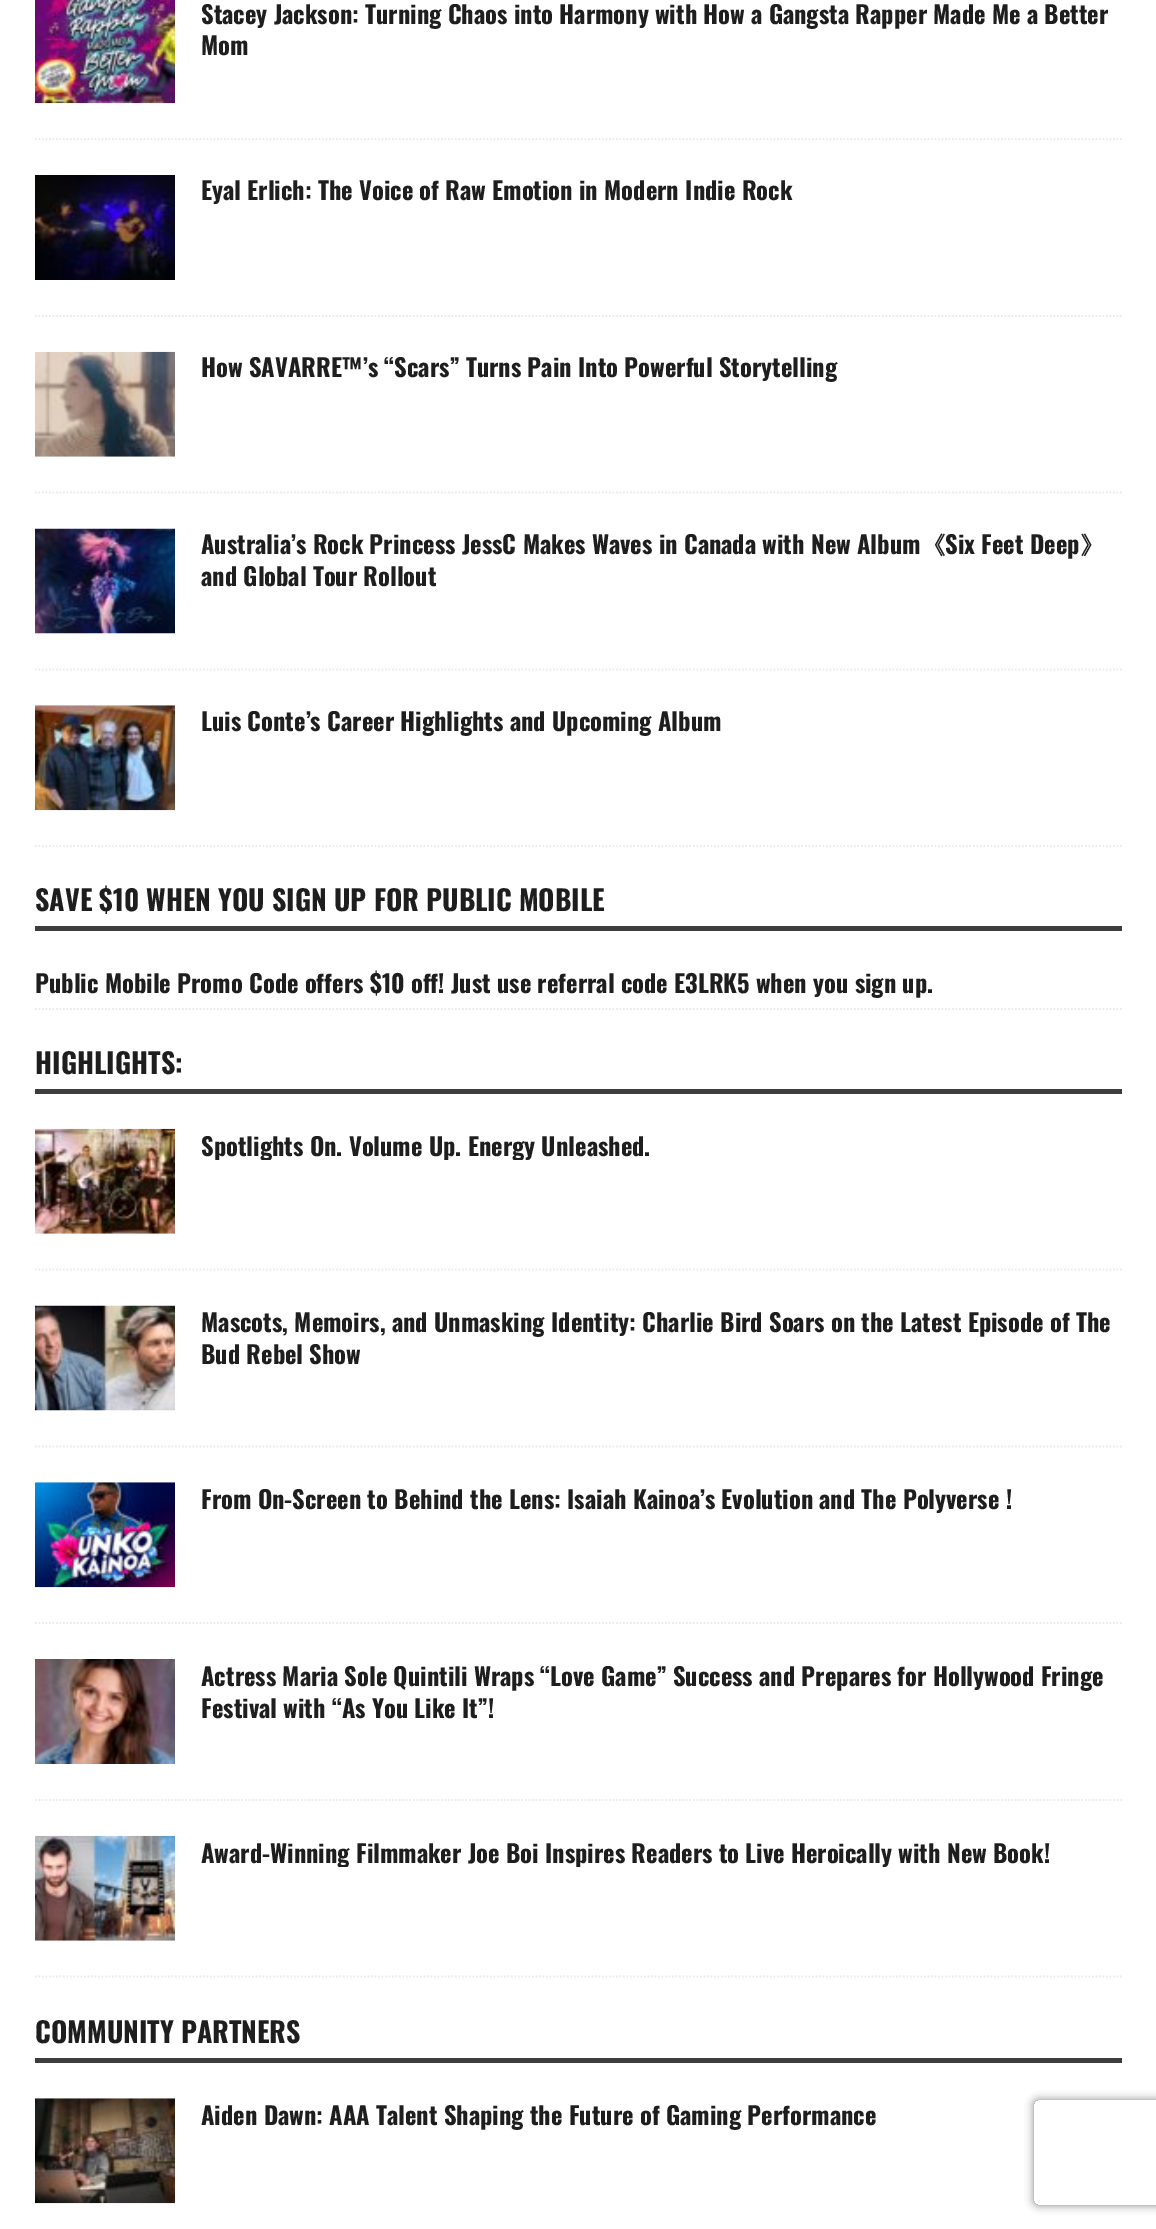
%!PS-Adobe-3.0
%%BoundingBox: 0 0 1156 2229
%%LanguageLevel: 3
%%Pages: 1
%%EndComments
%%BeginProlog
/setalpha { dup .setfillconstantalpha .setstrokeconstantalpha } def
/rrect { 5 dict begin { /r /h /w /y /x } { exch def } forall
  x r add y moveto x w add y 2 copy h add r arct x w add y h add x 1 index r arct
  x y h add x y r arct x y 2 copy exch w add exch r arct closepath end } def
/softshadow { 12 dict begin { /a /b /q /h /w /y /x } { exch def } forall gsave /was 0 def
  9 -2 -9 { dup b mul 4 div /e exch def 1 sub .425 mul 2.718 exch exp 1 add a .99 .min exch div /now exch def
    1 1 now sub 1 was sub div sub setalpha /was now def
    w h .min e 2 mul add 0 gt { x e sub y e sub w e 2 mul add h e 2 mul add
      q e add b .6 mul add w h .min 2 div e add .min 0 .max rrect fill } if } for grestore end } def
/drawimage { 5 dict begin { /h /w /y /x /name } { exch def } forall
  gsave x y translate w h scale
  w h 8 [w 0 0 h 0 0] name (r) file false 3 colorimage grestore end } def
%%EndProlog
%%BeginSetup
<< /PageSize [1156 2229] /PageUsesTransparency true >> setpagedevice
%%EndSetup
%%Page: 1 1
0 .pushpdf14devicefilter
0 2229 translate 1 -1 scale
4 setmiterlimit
1 setgray
0 0 1156 2229 rectfill
0.922 setgray
1.8 setlinewidth
[1.75 1.75] 0 setdash
newpath 35 139 moveto 1122 139 lineto stroke
(images/1.raw) 35 0 140 104 drawimage
newpath 35 316 moveto 1122 316 lineto stroke
(images/2.raw) 35 175 140 105 drawimage
newpath 35 492.5 moveto 1122 492.5 lineto stroke
(images/3.raw) 35 351 140 106 drawimage
newpath 35 669.5 moveto 1122 669.5 lineto stroke
(images/4.raw) 35 528 140 106 drawimage
newpath 35 846 moveto 1122 846 lineto stroke
(images/5.raw) 35 705 140 106 drawimage
0.239 setgray
35 926 1087 5 rectfill
0.922 setgray
newpath 35 1009 moveto 1122 1009 lineto stroke
0.239 setgray
35 1089 1087 5 rectfill
0.922 setgray
newpath 35 1269.5 moveto 1122 1269.5 lineto stroke
(images/6.raw) 35 1128 140 106 drawimage
newpath 35 1446.5 moveto 1122 1446.5 lineto stroke
(images/7.raw) 35 1305 140 106 drawimage
newpath 35 1623 moveto 1122 1623 lineto stroke
(images/8.raw) 35 1482 140 106 drawimage
newpath 35 1800 moveto 1122 1800 lineto stroke
(images/9.raw) 35 1659 140 105 drawimage
newpath 35 1976.5 moveto 1122 1976.5 lineto stroke
(images/10.raw) 35 1835 140 106 drawimage
0.239 setgray
35 2058 1087 5 rectfill
(images/11.raw) 35 2098 140 106 drawimage
gsave
newpath 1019 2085 moveto 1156 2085 lineto 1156 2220 lineto 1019 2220 lineto closepath 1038 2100 moveto 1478 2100 lineto 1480 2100 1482 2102 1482 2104 curveto 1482 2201 lineto 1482 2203 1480 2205 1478 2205 curveto 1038 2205 lineto 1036 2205 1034 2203 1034 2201 curveto 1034 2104 lineto 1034 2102 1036 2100 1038 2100 curveto closepath eoclip newpath
0.502 setgray
1034 2100 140 105 4 4.5 1 softshadow
grestore
/Oswald-Bold [24.5 0 0 -24.5 0 0] selectfont
0.122 0.118 0.118 setrgbcolor
201 24 moveto (Stacey Jackson: Turning Chaos into Harmony with How a Gangsta Rapper Made Me a Better) show
201 55 moveto (Mom) show
201 200 moveto (Eyal Erlich: The Voice of Raw Emotion in Modern Indie Rock) show
201 377 moveto (How SAVARRE™’s “Scars” Turns Pain Into Powerful Storytelling) show
201 554 moveto (Australia’s Rock Princess JessC Makes Waves in Canada with New Album) show
/WenQuanYiZenHei-Bold [24.5 0 0 -24.5 0 0] selectfont
921 554 moveto (《) show
/Oswald-Bold [24.5 0 0 -24.5 0 0] selectfont
945 554 moveto (Six Feet Deep) show
/WenQuanYiZenHei-Bold [24.5 0 0 -24.5 0 0] selectfont
1080 554 moveto (》) show
/Oswald-Bold [24.5 0 0 -24.5 0 0] selectfont
201 586 moveto (and Global Tour Rollout) show
201 731 moveto (Luis Conte’s Career Highlights and Upcoming Album) show
/Oswald-Bold [28 0 0 -28 0 0] selectfont
35 911 moveto (SAVE $10 WHEN YOU SIGN UP FOR PUBLIC MOBILE) show
/Oswald-Bold [24.5 0 0 -24.5 0 0] selectfont
35 993 moveto (Public Mobile Promo Code offers $10 off! Just use referral code E3LRK5 when you sign up.) show
/Oswald-Bold [28 0 0 -28 0 0] selectfont
35 1074 moveto (HIGHLIGHTS:) show
gsave
201 1129 921 31 rectclip
/Oswald-Bold [24.5 0 0 -24.5 0 0] selectfont
201 1156 moveto (Spotlights On. Volume Up. Energy Unleashed.) show
grestore
/Oswald-Bold [24.5 0 0 -24.5 0 0] selectfont
201 1332 moveto (Mascots, Memoirs, and Unmasking Identity: Charlie Bird Soars on the Latest Episode of The) show
201 1364 moveto (Bud Rebel Show) show
201 1509 moveto (From On-Screen to Behind the Lens: Isaiah Kainoa’s Evolution and The Polyverse !) show
201 1686 moveto (Actress Maria Sole Quintili Wraps “Love Game” Success and Prepares for Hollywood Fringe) show
201 1718 moveto (Festival with “As You Like It”!) show
gsave
201 1836 921 31 rectclip
201 1863 moveto (Award-Winning Filmmaker Joe Boi Inspires Readers to Live Heroically with New Book!) show
grestore
/Oswald-Bold [28 0 0 -28 0 0] selectfont
35 2043 moveto (COMMUNITY PARTNERS) show
/Oswald-Bold [24.5 0 0 -24.5 0 0] selectfont
201 2125 moveto (Aiden Dawn: AAA Talent Shaping the Future of Gaming Performance) show
.poppdf14devicefilter showpage
%%EOF
